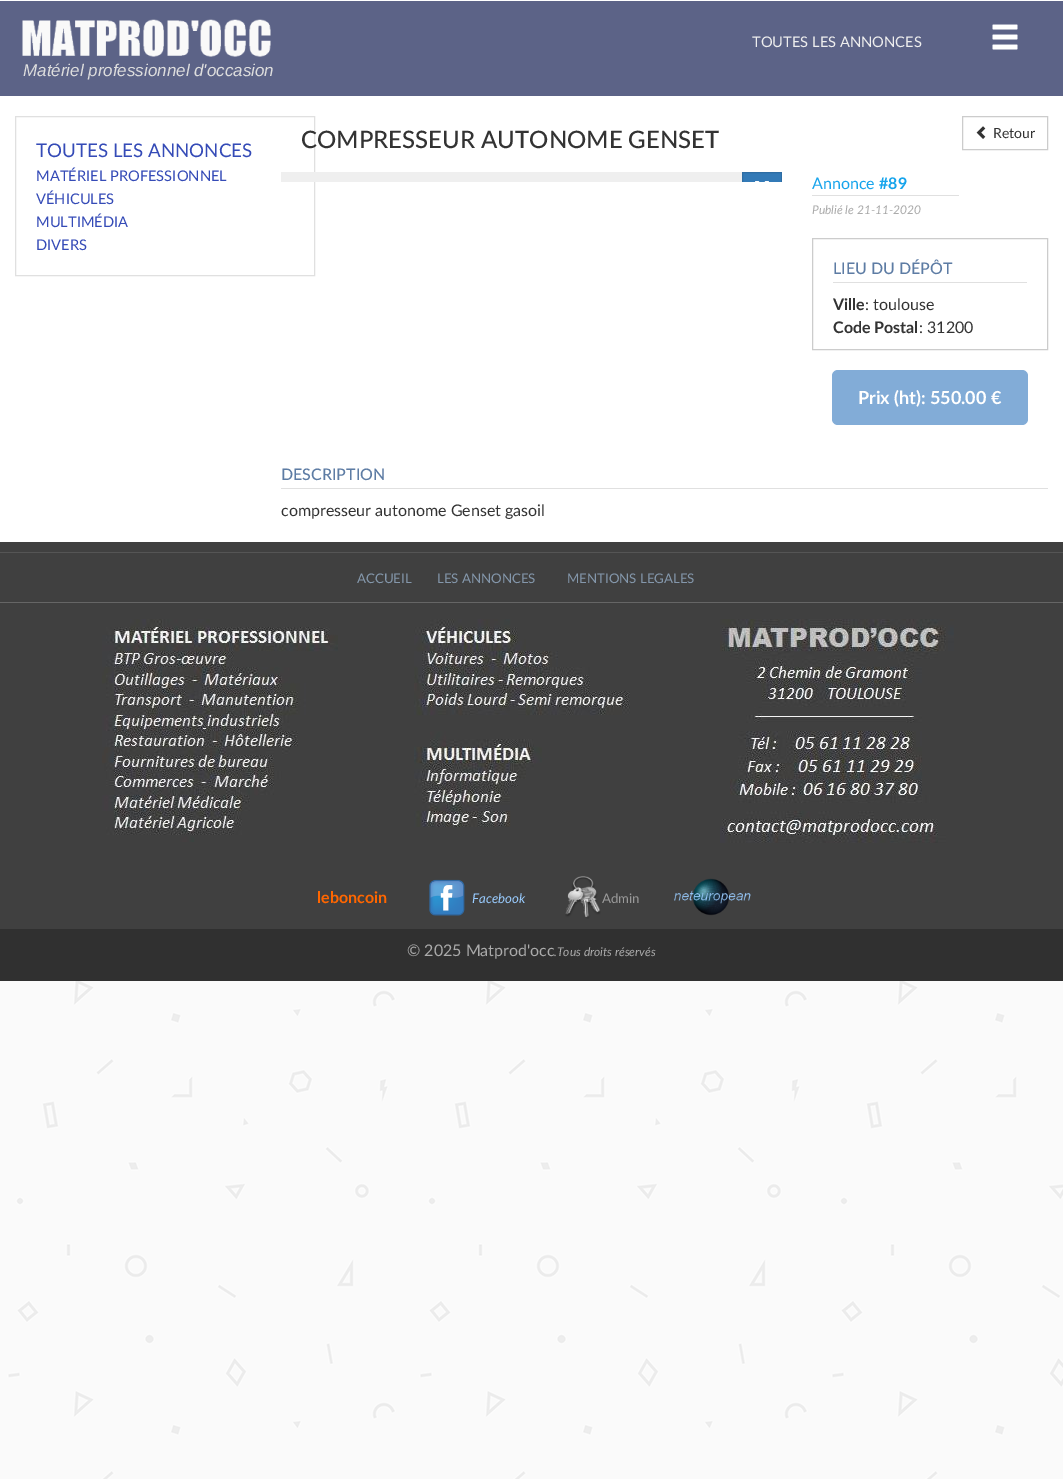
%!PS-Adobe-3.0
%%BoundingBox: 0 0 1063 1479
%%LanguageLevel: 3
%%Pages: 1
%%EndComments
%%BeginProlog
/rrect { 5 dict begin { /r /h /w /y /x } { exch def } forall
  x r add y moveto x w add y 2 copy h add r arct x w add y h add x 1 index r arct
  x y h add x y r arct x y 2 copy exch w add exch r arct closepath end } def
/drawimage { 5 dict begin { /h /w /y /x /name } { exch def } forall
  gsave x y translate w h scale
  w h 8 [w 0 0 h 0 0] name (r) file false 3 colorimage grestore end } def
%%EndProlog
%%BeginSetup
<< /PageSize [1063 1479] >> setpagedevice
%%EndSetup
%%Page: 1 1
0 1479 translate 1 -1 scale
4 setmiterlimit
1 setgray
0 0 1063 1479 rectfill
(images/1.raw) 0 981 1063 498 drawimage
0.361 0.388 0.529 setrgbcolor
0 1 1063 95 rectfill
(images/2.raw) 992 24 26 26 drawimage
(images/3.raw) 22 19 249 38 drawimage
0.878 setgray
15.5 116.5 299 159 rectstroke
0.8 setgray
962.5 116.5 85 33 rectstroke
(images/4.raw) 976 126 10 13 drawimage
0.937 setgray
281 172 461 10 rectfill
0.2 0.478 0.718 setrgbcolor
743 173 38 9 rectfill
gsave
281 172 501 10 rectclip
0.18 0.427 0.643 setrgbcolor
742.5 172.5 39 33 rectstroke
grestore
(images/5.raw) 755 181 14 1 drawimage
0.878 setgray
812 195 147 1 rectfill
0.8 setgray
812.5 238.5 235 111 rectstroke
0.878 setgray
833 282 194 1 rectfill
0.51 0.675 0.843 setrgbcolor
832 370 196 55 6 rrect fill
0.878 setgray
281 488 767 1 rectfill
0.251 setgray
0 542 1063 387 rectfill
0.333 setgray
0 552 1063 1 rectfill
0.4 setgray
0 602 1063 1 rectfill
(images/6.raw) 102 619 236 223 drawimage
(images/7.raw) 414 619 216 208 drawimage
(images/8.raw) 720 619 234 224 drawimage
(images/9.raw) 429 879 36 37 drawimage
(images/10.raw) 565 876 36 43 drawimage
(images/11.raw) 674 878 77 38 drawimage
0.188 setgray
0 929 1063 52 rectfill
/Lato-Regular [14.7 0 0 -14.7 0 0] selectfont
0.933 setgray
752 47 moveto (TOUTES LES ANNONCES) show
/LiberationSans-Italic [17 0 0 -17 0 0] selectfont
0.867 setgray
23 76 moveto (Matériel professionnel d'occasion) show
/Lato-Regular [18.75 0 0 -18.75 0 0] selectfont
0.208 0.294 0.718 setrgbcolor
36 157 moveto (TOUTES LES ANNONCES) show
/Lato-Regular [14.7 0 0 -14.7 0 0] selectfont
36 181 moveto (MATÉRIEL PROFESSIONNEL) show
36 204 moveto (VÉHICULES) show
36 227 moveto (MULTIMÉDIA) show
36 250 moveto (DIVERS) show
/Lato-Medium [24 0 0 -24 0 0] selectfont
0.2 setgray
301 148 moveto (COMPRESSEUR AUTONOME GENSET) show
/Lato-Regular [14 0 0 -14 0 0] selectfont
993 138 moveto (Retour) show
/Lato-Regular [16 0 0 -16 0 0] selectfont
0.086 0.643 0.925 setrgbcolor
812 189 moveto (Annonce) show
/Lato-Bold [16 0 0 -16 0 0] selectfont
879 189 moveto (#89) show
/Lato-Italic [12 0 0 -12 0 0] selectfont
0.667 setgray
812 214 moveto (Publié le 21-11-2020) show
/Lato-Medium [16 0 0 -16 0 0] selectfont
0.365 0.486 0.643 setrgbcolor
833 274 moveto (LIEU DU DÉPÔT) show
/Lato-Bold [16 0 0 -16 0 0] selectfont
0.2 setgray
833 310 moveto (Ville) show
/Lato-Regular [16 0 0 -16 0 0] selectfont
865 310 moveto (: toulouse) show
/Lato-Bold [16 0 0 -16 0 0] selectfont
833 333 moveto (Code Postal) show
/Lato-Regular [16 0 0 -16 0 0] selectfont
919 333 moveto (: 31200) show
/Lato-Bold [18 0 0 -18 0 0] selectfont
1 setgray
858 404 moveto (Prix \(ht\): 550.00 €) show
/Lato-Medium [16 0 0 -16 0 0] selectfont
0.365 0.486 0.643 setrgbcolor
281 480 moveto (DESCRIPTION) show
/Lato-Regular [16 0 0 -16 0 0] selectfont
0.2 setgray
281 516 moveto (compresseur autonome Genset gasoil) show
/Lato-Regular [13.25 0 0 -13.25 0 0] selectfont
0.518 0.592 0.671 setrgbcolor
357 583 moveto (ACCUEIL) show
437 583 moveto (LES ANNONCES) show
567 583 moveto (MENTIONS LEGALES) show
/Lato-Bold [16 0 0 -16 0 0] selectfont
1 0.4 0 setrgbcolor
317 903 moveto (leboncoin) show
/Lato-Italic [13.25 0 0 -13.25 0 0] selectfont
0.6 0.8 1 setrgbcolor
472 903 moveto (Facebook) show
/Lato-Regular [13.25 0 0 -13.25 0 0] selectfont
0.6 setgray
602 903 moveto (Admin) show
/Lato-Regular [16 0 0 -16 0 0] selectfont
0.667 setgray
407 956 moveto (© 2025 Matprod'occ) show
/Lato-Italic [12 0 0 -12 0 0] selectfont
554 956 moveto (.Tous droits réservés) show
showpage
%%EOF
